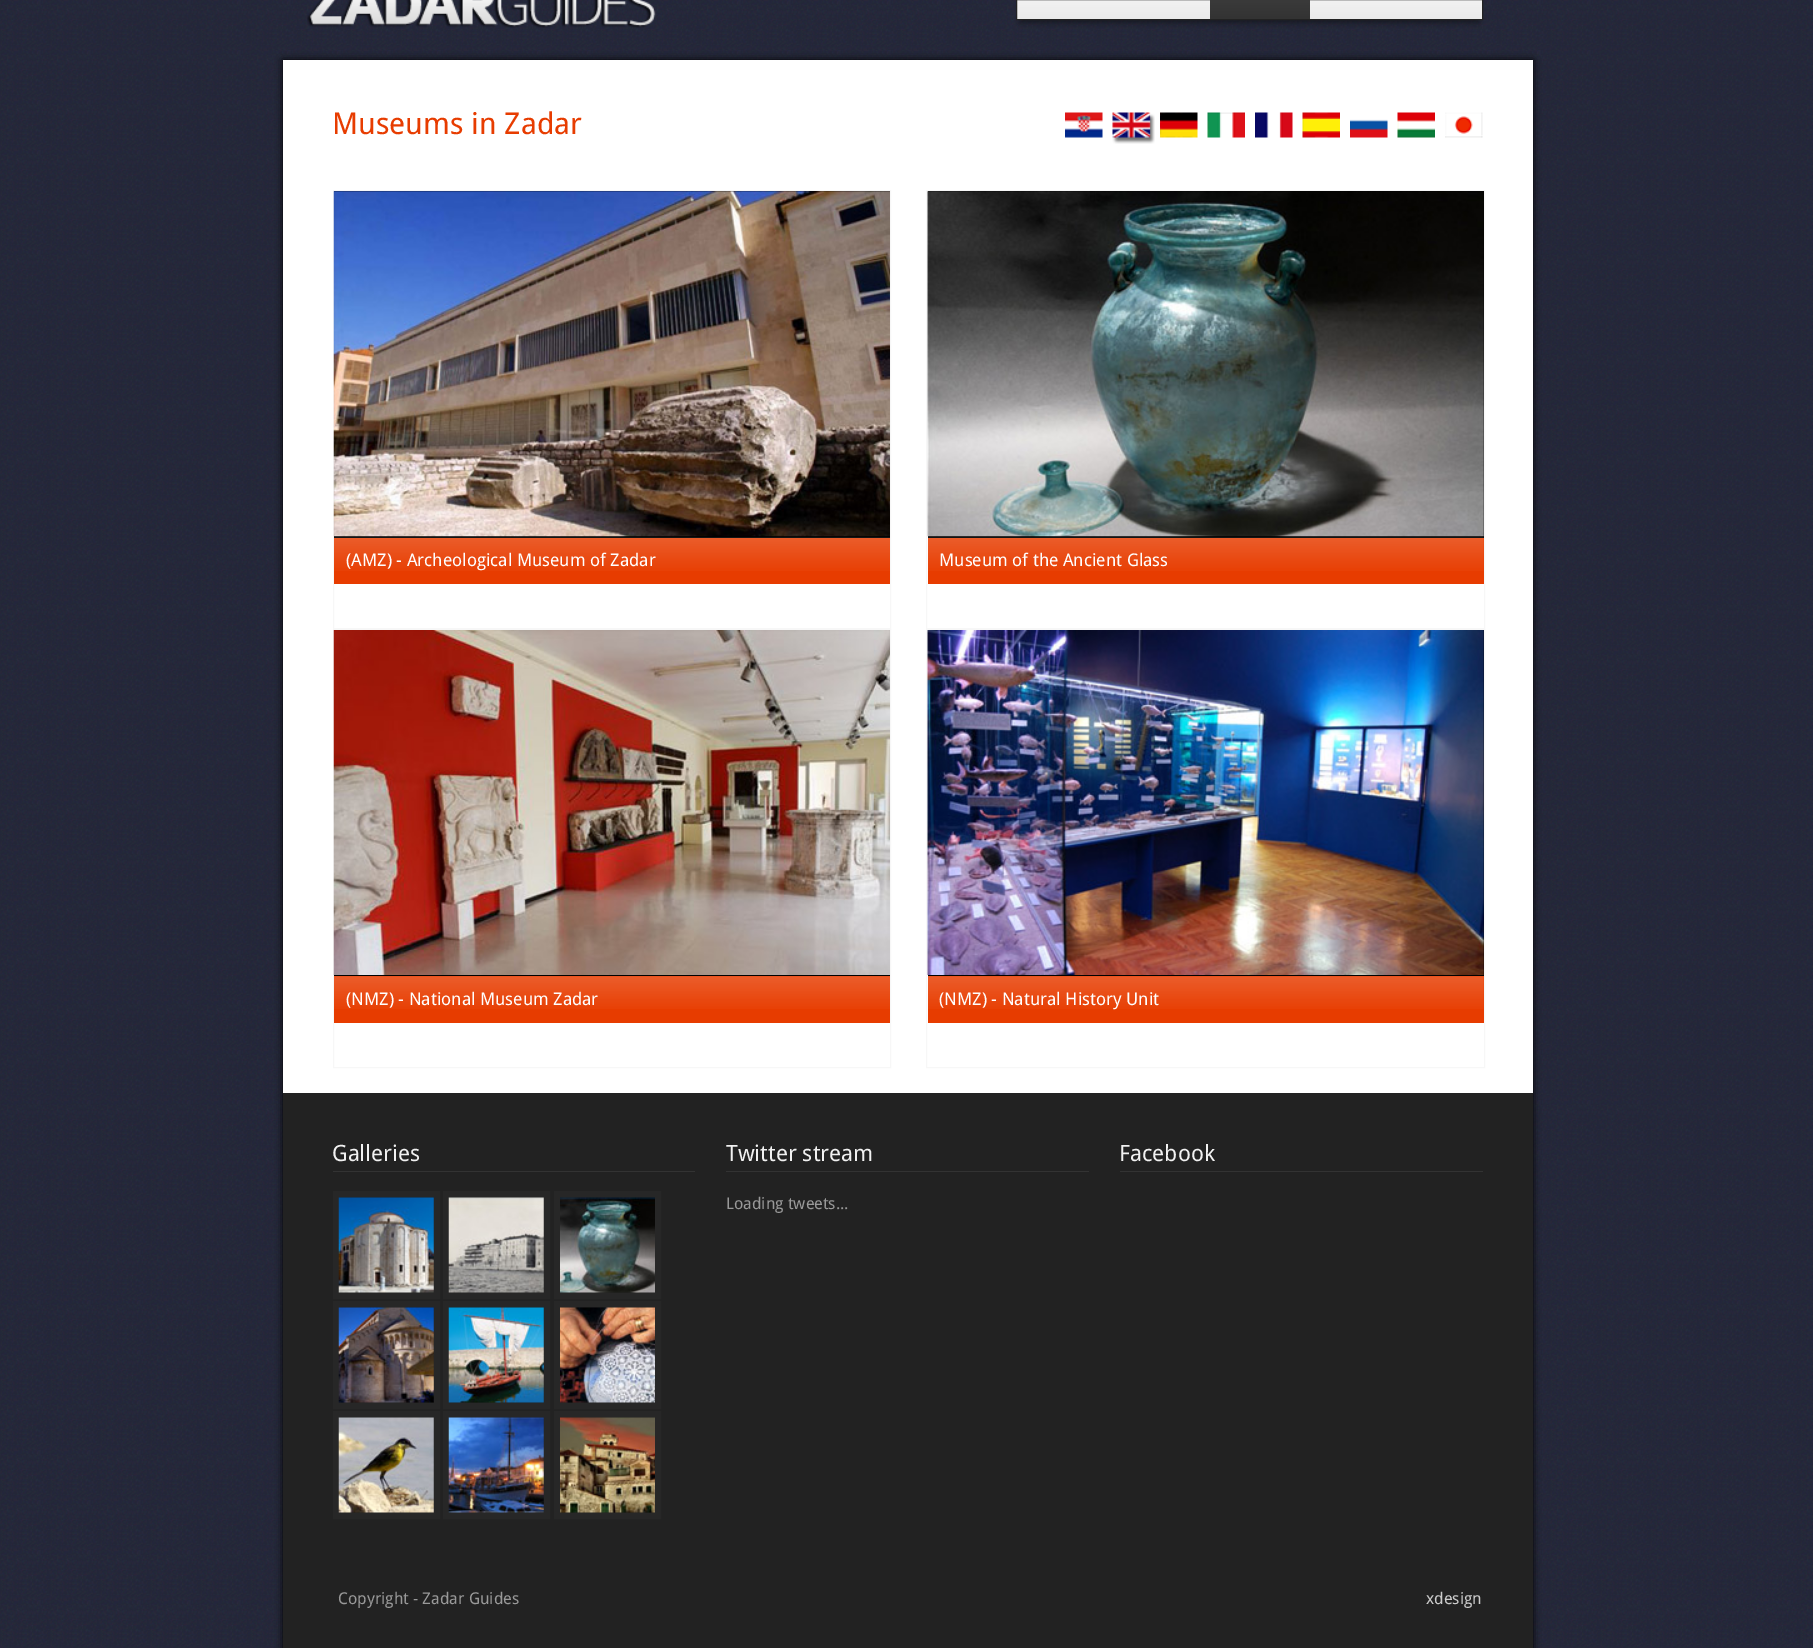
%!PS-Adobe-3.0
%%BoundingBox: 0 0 1813 1648
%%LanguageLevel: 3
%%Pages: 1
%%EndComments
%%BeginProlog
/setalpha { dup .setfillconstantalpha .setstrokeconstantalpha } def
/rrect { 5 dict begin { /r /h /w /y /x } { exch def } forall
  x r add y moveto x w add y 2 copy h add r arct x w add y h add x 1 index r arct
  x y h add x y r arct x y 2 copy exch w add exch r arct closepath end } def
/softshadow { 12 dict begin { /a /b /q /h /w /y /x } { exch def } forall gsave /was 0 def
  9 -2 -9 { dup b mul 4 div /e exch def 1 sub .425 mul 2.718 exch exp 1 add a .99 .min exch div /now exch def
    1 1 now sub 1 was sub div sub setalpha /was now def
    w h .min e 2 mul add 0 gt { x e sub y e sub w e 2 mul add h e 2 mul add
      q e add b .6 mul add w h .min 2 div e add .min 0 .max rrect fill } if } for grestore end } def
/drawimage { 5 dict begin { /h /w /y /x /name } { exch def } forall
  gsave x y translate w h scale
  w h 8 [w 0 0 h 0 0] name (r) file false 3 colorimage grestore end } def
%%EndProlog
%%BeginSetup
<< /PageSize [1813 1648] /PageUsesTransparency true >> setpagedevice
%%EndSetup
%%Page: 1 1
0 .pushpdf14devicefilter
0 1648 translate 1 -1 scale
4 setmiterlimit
0.18 0.196 0.29 setrgbcolor
0 0 1813 1648 rectfill
(images/1.raw) 0 0 1813 1648 drawimage
(images/2.raw) 307 0 349 28 drawimage
0 setgray
1020 -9 459 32 0 3 0.4 softshadow
gsave newpath 1017 0 moveto 1482 0 lineto 1482 19 lineto 1017 19 lineto closepath clip newpath
<< /ShadingType 2 /ColorSpace /DeviceRGB /Coords [1018 -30 1018 19] /Extend [true true] /Function << /FunctionType 2 /Domain [0 1] /C0 [1 1 1] /C1 [0.918 0.918 0.918] /N 1 >> >> shfill grestore
0.133 setgray
1016.5 -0.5 466 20 rectstroke
gsave newpath 1210 0 moveto 1310 0 lineto 1310 19 lineto 1210 19 lineto closepath clip newpath
<< /ShadingType 2 /ColorSpace /DeviceRGB /Coords [1210 -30 1210 19] /Extend [true true] /Function << /FunctionType 2 /Domain [0 1] /C0 [0.267 0.267 0.267] /C1 [0.2 0.2 0.2] /N 1 >> >> shfill grestore
0 setgray
283 60 1250 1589 0 4 1 softshadow
1 setgray
283 60 1250 1033 rectfill
(images/3.raw) 1065 112 38 26 drawimage
(images/4.raw) 1112 112 43 32 drawimage
(images/5.raw) 1160 112 38 26 drawimage
(images/6.raw) 1207 112 38 26 drawimage
(images/7.raw) 1255 112 38 26 drawimage
(images/8.raw) 1302 112 38 26 drawimage
(images/9.raw) 1350 119 38 19 drawimage
(images/10.raw) 1397 112 38 26 drawimage
(images/11.raw) 1445 112 38 26 drawimage
0.969 setgray
333.5 190.5 557 438 rectstroke
0 setgray
334 191 556 347 rectfill
(images/12.raw) 333 191 557 346 drawimage
0.906 0.235 0 setrgbcolor
334 538 556 46 rectfill
(images/13.raw) 334 537 556 34 drawimage
0.969 setgray
926.5 190.5 558 438 rectstroke
0 setgray
928 191 556 347 rectfill
(images/14.raw) 927 191 557 346 drawimage
0.906 0.235 0 setrgbcolor
928 538 556 46 rectfill
(images/15.raw) 928 537 556 34 drawimage
0.969 setgray
333.5 629.5 557 438 rectstroke
0 setgray
334 975 556 1 rectfill
(images/16.raw) 333 630 557 345 drawimage
0.906 0.235 0 setrgbcolor
334 976 556 47 rectfill
(images/17.raw) 334 976 556 33 drawimage
0.969 setgray
926.5 629.5 558 438 rectstroke
0 setgray
928 630 556 346 rectfill
(images/18.raw) 927 630 557 345 drawimage
0.906 0.235 0 setrgbcolor
928 976 556 47 rectfill
(images/19.raw) 928 976 556 33 drawimage
0.133 setgray
283 1093 1250 555 rectfill
0.2 setgray
333 1171 362 1 rectfill
0.153 setgray
6 setlinewidth
336 1194 101 102 rectstroke
446 1194 101 102 rectstroke
557 1194 101 102 rectstroke
(images/20.raw) 338 1197 96 96 drawimage
(images/21.raw) 448 1197 96 96 drawimage
(images/22.raw) 560 1197 95 96 drawimage
336 1304 101 102 rectstroke
446 1304 101 102 rectstroke
557 1304 101 102 rectstroke
(images/23.raw) 338 1307 96 96 drawimage
(images/24.raw) 448 1307 96 96 drawimage
(images/25.raw) 560 1307 95 96 drawimage
336 1414 101 102 rectstroke
446 1414 101 102 rectstroke
557 1414 101 102 rectstroke
(images/26.raw) 338 1417 96 96 drawimage
(images/27.raw) 448 1417 96 96 drawimage
(images/28.raw) 560 1417 95 96 drawimage
0.2 setgray
726 1171 363 1 rectfill
1120 1171 363 1 rectfill
/DroidSans-Regular [30 0 0 -30 0 0] selectfont
0.906 0.235 0 setrgbcolor
332 134 moveto (Museums in Zadar) show
/DroidSans-Regular [17.5 0 0 -17.5 0 0] selectfont
1 setgray
346 566 moveto (\(AMZ\) - Archeological Museum of Zadar) show
939 566 moveto (Museum of the Ancient Glass) show
346 1005 moveto (\(NMZ\) - National Museum Zadar) show
939 1005 moveto (\(NMZ\) - Natural History Unit) show
/DroidSans-Regular [22.5 0 0 -22.5 0 0] selectfont
0.945 setgray
332 1161 moveto (Galleries) show
726 1161 moveto (Twitter stream) show
/DroidSans-Regular [16.25 0 0 -16.25 0 0] selectfont
0.6 setgray
726 1209 moveto (Loading tweets...) show
/DroidSans-Regular [22.5 0 0 -22.5 0 0] selectfont
0.945 setgray
1119 1161 moveto (Facebook) show
/DroidSans-Regular [16.25 0 0 -16.25 0 0] selectfont
0.6 setgray
338 1604 moveto (Copyright - Zadar Guides) show
0.8 setgray
1426 1604 moveto (xdesign) show
.poppdf14devicefilter showpage
%%EOF
